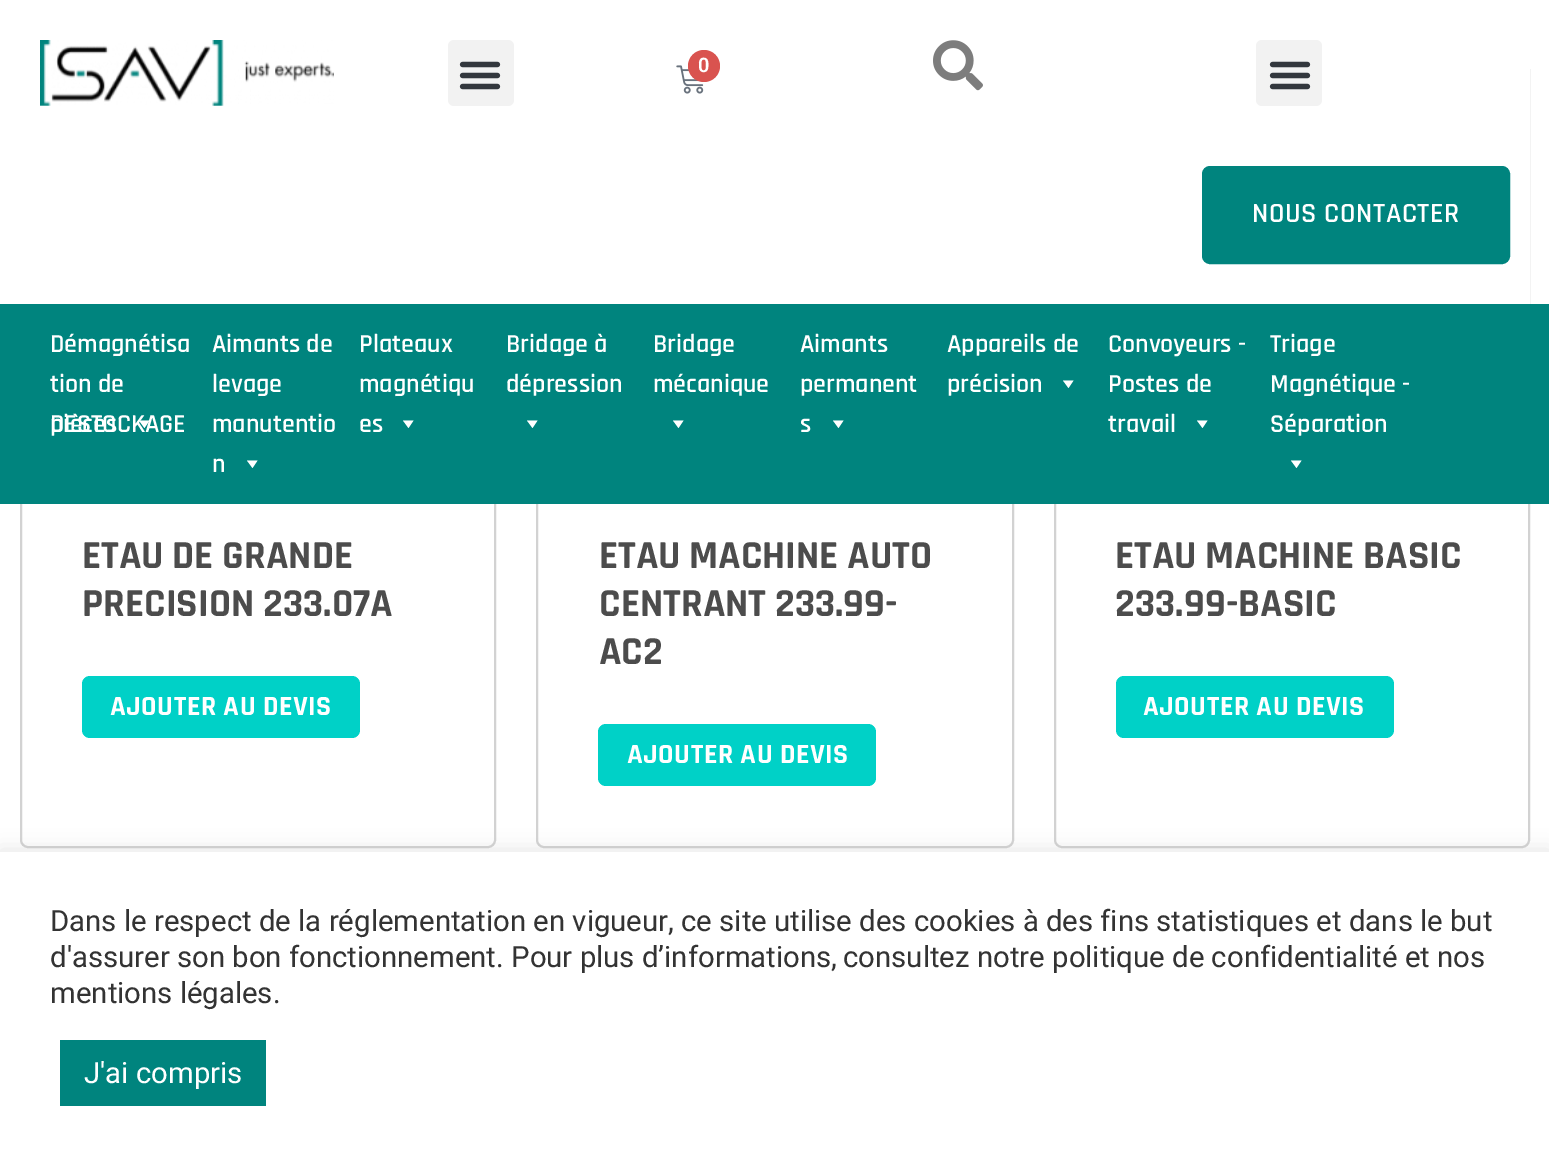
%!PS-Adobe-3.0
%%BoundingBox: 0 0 1549 1166
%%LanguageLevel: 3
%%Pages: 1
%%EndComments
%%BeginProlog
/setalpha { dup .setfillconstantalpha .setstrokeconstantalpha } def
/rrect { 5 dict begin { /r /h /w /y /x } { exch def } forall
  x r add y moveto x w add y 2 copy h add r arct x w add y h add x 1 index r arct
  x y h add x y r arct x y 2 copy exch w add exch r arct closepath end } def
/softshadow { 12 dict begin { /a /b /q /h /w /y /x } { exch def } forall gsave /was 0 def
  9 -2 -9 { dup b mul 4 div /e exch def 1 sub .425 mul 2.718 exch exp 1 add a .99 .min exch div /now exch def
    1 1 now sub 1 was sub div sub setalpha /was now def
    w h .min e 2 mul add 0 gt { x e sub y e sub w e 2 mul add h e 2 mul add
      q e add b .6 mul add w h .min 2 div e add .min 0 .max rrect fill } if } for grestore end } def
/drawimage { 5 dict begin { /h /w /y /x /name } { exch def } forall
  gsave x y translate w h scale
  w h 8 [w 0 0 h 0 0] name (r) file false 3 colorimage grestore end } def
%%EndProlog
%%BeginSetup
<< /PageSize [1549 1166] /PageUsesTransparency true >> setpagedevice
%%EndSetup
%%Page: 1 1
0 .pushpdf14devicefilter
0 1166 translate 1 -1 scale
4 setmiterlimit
1 setgray
0 0 1549 1166 rectfill
0.824 setgray
2 setlinewidth
21 63 474 784 7 rrect stroke
537 63 476 784 7 rrect stroke
1055 63 474 784 7 rrect stroke
1 setgray
20 62 1510 242 rectfill
(images/1.raw) 40 40 294 66 drawimage
0.949 setgray
448 40 66 66 6 rrect fill
(images/2.raw) 459 61 42 29 drawimage
(images/3.raw) 676 65 28 29 drawimage
0.851 0.325 0.31 setrgbcolor
newpath 704 66 16 0 360 arc closepath fill
(images/4.raw) 933 40 50 51 drawimage
0.949 setgray
1256 40 66 66 6 rrect fill
(images/2.raw) 1269 61 42 29 drawimage
0 0.518 0.494 setrgbcolor
1203 167 306 96 7 rrect gsave fill grestore
stroke
0 304 1549 200 rectfill
1 setgray
newpath 149.5 420.5 moveto 144.5 428 lineto 139 420.5 lineto closepath fill
newpath 257.5 460.5 moveto 252.5 468 lineto 247 460.5 lineto closepath fill
newpath 413.5 420.5 moveto 408.5 428 lineto 403 420.5 lineto closepath fill
newpath 537.5 420.5 moveto 532.5 428 lineto 527 420.5 lineto closepath fill
newpath 683.5 420.5 moveto 678.5 428 lineto 673 420.5 lineto closepath fill
newpath 843.5 420.5 moveto 838.5 428 lineto 833 420.5 lineto closepath fill
newpath 1073.5 380.5 moveto 1068.5 388 lineto 1063 380.5 lineto closepath fill
newpath 1207.5 420.5 moveto 1202.5 428 lineto 1197 420.5 lineto closepath fill
newpath 1301.5 460.5 moveto 1296.5 468 lineto 1291 460.5 lineto closepath fill
0 0.82 0.78 setrgbcolor
82 676 278 62 8 rrect fill
598 724 278 62 8 rrect fill
1116 676 278 62 8 rrect fill
0.675 0.671 0.671 setrgbcolor
0 850 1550 314 0 10 0.3 softshadow
1 setgray
0 852 1549 314 rectfill
0 0.518 0.494 setrgbcolor
60 1040 206 66 rectfill
/Roboto-SemiBold [20 0 0 -20 0 0] selectfont
1 setgray
698 72 moveto (0) show
/Rajdhani-SemiBold [28 0 0 -28 0 0] selectfont
1252 222 moveto 0.6 0 (NOUS CONTACTER) ashow
/Rajdhani-SemiBold [26 0 0 -26 0 0] selectfont
50 352 moveto (Démagnétisa) show
50 392 moveto (tion de) show
50 432 moveto (pièces) show
212 352 moveto (Aimants de) show
212 392 moveto (levage) show
212 432 moveto (manutentio) show
212 472 moveto (n) show
359 352 moveto (Plateaux) show
359 392 moveto (magnétiqu) show
359 432 moveto (es) show
506 352 moveto (Bridage à) show
506 392 moveto (dépression) show
653 352 moveto (Bridage) show
653 392 moveto (mécanique) show
800 352 moveto (Aimants) show
800 392 moveto (permanent) show
800 432 moveto (s) show
947 352 moveto (Appareils de) show
947 392 moveto (précision) show
1108 352 moveto (Convoyeurs -) show
1108 392 moveto (Postes de) show
1108 432 moveto (travail) show
1270 352 moveto (Triage) show
1270 392 moveto (Magnétique -) show
1270 432 moveto (Séparation) show
50 432 moveto (DESTOCKAGE) show
/Rajdhani-Bold [40 0 0 -40 0 0] selectfont
0.298 setgray
82 568 moveto (ETAU DE GRANDE) show
82 616 moveto (PRECISION 233.07A) show
/Rajdhani-Bold [28 0 0 -28 0 0] selectfont
1 setgray
110 715 moveto 0.6 0 (AJOUTER AU DEVIS) ashow
/Rajdhani-Bold [40 0 0 -40 0 0] selectfont
0.298 setgray
599 568 moveto (ETAU MACHINE AUTO) show
599 616 moveto (CENTRANT 233.99-) show
599 664 moveto (AC2) show
/Rajdhani-Bold [28 0 0 -28 0 0] selectfont
1 setgray
627 763 moveto 0.6 0 (AJOUTER AU DEVIS) ashow
/Rajdhani-Bold [40 0 0 -40 0 0] selectfont
0.298 setgray
1115 568 moveto (ETAU MACHINE BASIC) show
1115 616 moveto (233.99-BASIC) show
/Rajdhani-Bold [28 0 0 -28 0 0] selectfont
1 setgray
1143 715 moveto 0.6 0 (AJOUTER AU DEVIS) ashow
/Roboto-Regular [29.35 0 0 -29.35 0 0] selectfont
0.2 setgray
50 931 moveto (Dans le respect de la réglementation en vigueur, ce site utilise des cookies à des fins statistiques et dans le but) show
50 967 moveto (d'assurer son bon fonctionnement. Pour plus d’informations,) show
843 967 moveto (consultez notre politique de confidentialité et nos) show
50 1003 moveto (mentions légales.) show
1 setgray
84 1083 moveto (J'ai compris) show
.poppdf14devicefilter showpage
%%EOF
